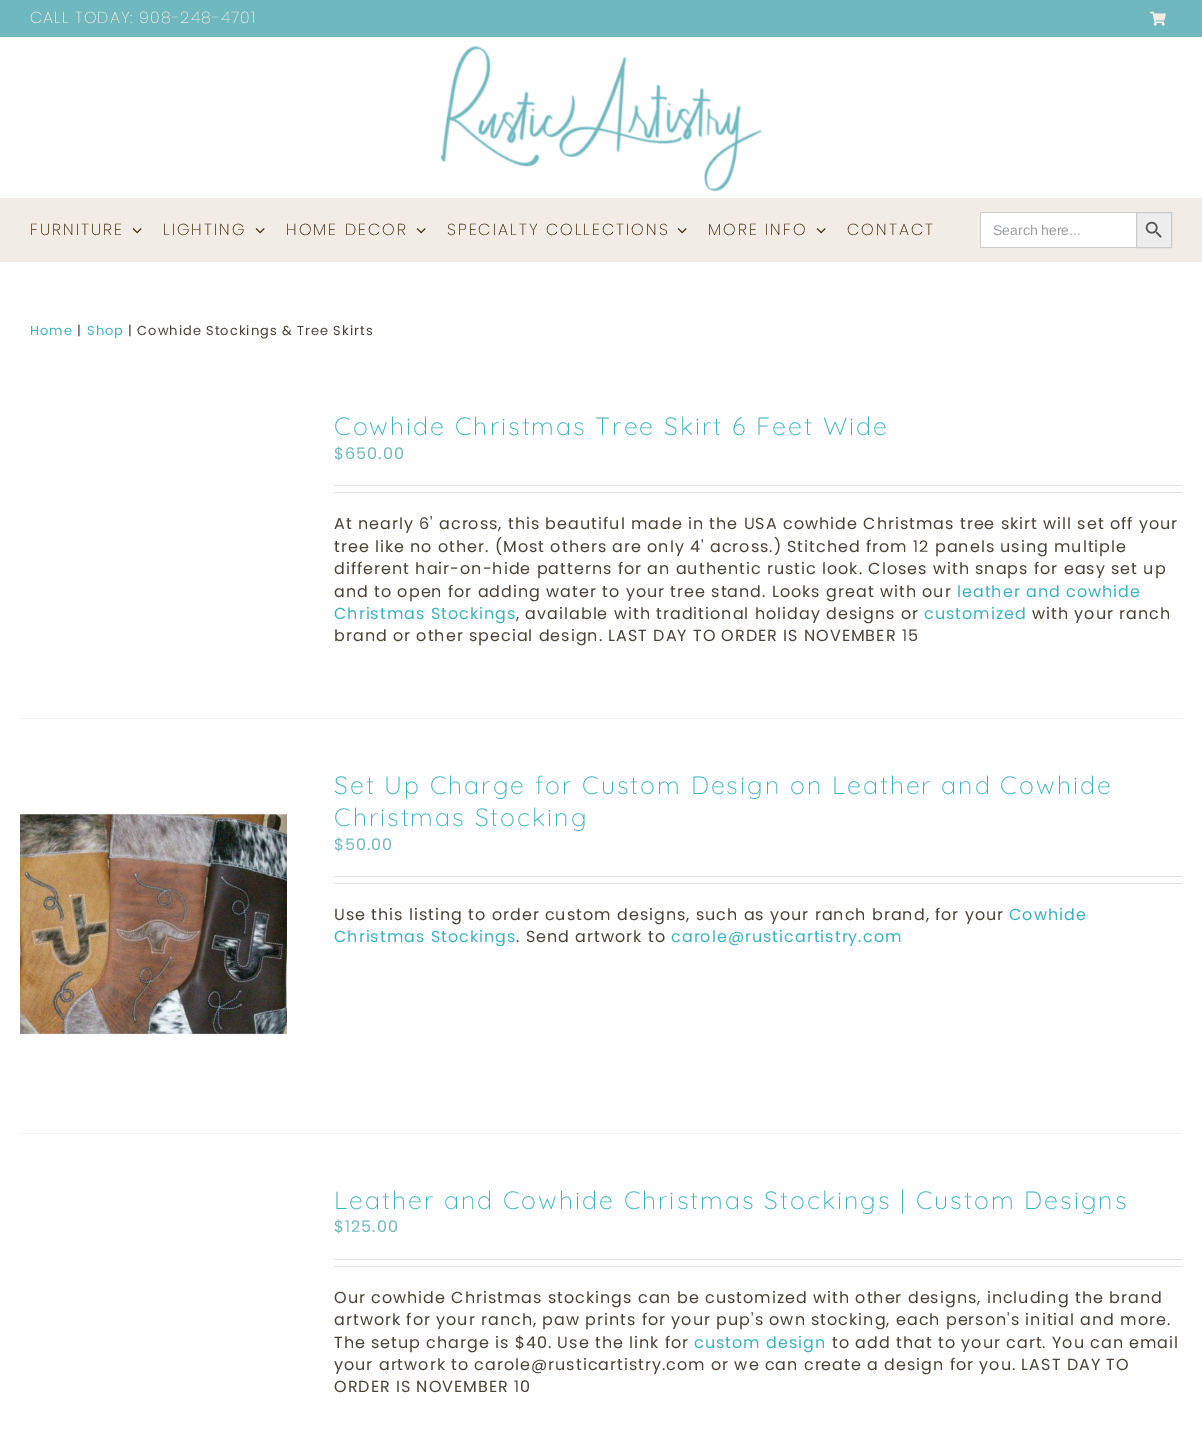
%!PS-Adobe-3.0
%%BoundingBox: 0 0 1202 1450
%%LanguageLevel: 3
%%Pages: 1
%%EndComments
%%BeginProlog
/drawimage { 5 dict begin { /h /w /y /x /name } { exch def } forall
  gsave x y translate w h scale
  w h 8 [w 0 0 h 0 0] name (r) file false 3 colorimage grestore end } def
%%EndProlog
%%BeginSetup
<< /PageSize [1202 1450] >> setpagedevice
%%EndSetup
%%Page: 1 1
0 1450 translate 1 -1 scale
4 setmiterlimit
1 setgray
0 0 1202 1450 rectfill
0.439 0.722 0.753 setrgbcolor
0 0 1202 37 rectfill
(images/1.raw) 1150 11 16 15 drawimage
(images/2.raw) 440 45 322 147 drawimage
0.945 0.925 0.898 setrgbcolor
0 198 1202 64 rectfill
(images/3.raw) 132 228 10 6 drawimage
(images/3.raw) 255 228 10 6 drawimage
(images/3.raw) 416 228 10 6 drawimage
(images/3.raw) 677 228 10 6 drawimage
(images/3.raw) 816 228 10 6 drawimage
1 setgray
981 213 155 34 rectfill
0.8 setgray
980 212 156 1 rectfill
980 247 156 1 rectfill
980 212 1 36 rectfill
0.929 setgray
newpath 1136.5 212.5 moveto 1171.5 212.5 lineto 1171.5 247.5 lineto 1136.5 247.5 lineto closepath gsave fill grestore
0.8 setgray
stroke
(images/4.raw) 1145 221 17 17 drawimage
0.949 0.953 0.961 setrgbcolor
20 718 1162 1 rectfill
0.886 setgray
334 485 848 1 rectfill
334 492 848 1 rectfill
0.949 0.953 0.961 setrgbcolor
20 1133 1162 1 rectfill
(images/5.raw) 20 812 267 224 drawimage
0.886 setgray
334 876 848 1 rectfill
334 883 848 1 rectfill
334 1259 848 1 rectfill
334 1266 848 1 rectfill
/Poppins-ExtraLight [16 0 0 -16 0 0] selectfont
0.945 0.925 0.898 setrgbcolor
30 23 moveto 1 0 (CALL TODAY: 908-248-4701) ashow
0.247 0.137 0 setrgbcolor
30 235 moveto 2 0 (FURNITURE) ashow
163 235 moveto 2 0 (LIGHTING) ashow
286 235 moveto 2 0 (HOME DECOR) ashow
447 235 moveto 2 0 (SPECIALTY COLLECTIONS) ashow
708 235 moveto 2 0 (MORE INFO) ashow
847 235 moveto 2 0 (CONTACT) ashow
/LiberationSans-Regular [14 0 0 -14 0 0] selectfont
0.62 0.627 0.643 setrgbcolor
993 235 moveto (Search here...) show
/Poppins-Regular [13 0 0 -13 0 0] selectfont
0.231 0.698 0.749 setrgbcolor
30 335 moveto 1 0 (Home) ashow
0.298 0.259 0.212 setrgbcolor
77 335 moveto 1 0 (|) ashow
0.231 0.698 0.749 setrgbcolor
87 335 moveto 1 0 (Shop) ashow
0.298 0.259 0.212 setrgbcolor
128 335 moveto 1 0 (| Cowhide Stockings & Tree Skirts) ashow
/Quicksand-Light [25 0 0 -25 0 0] selectfont
0.231 0.698 0.749 setrgbcolor
334 435 moveto 2 0 (Cowhide Christmas Tree Skirt 6 Feet Wide) ashow
/Poppins-Regular [16 0 0 -16 0 0] selectfont
0.439 0.722 0.753 setrgbcolor
334 459 moveto 1 0 ($650.00) ashow
0.298 0.259 0.212 setrgbcolor
334 529 moveto 1 0 (At nearly 6' across, this beautiful made in the USA cowhide Christmas tree skirt will set off your) ashow
334 552 moveto 1 0 (tree like no other. \(Most others are only 4' across.\) Stitched from 12 panels using multiple) ashow
334 574 moveto 1 0 (different hair-on-hide patterns for an authentic rustic look. Closes with snaps for easy set up) ashow
334 597 moveto 1 0 (and to open for adding water to your tree stand. Looks great with our) ashow
0.231 0.698 0.749 setrgbcolor
957 597 moveto 1 0 (leather and cowhide) ashow
334 619 moveto 1 0 (Christmas Stockings) ashow
0.298 0.259 0.212 setrgbcolor
516 619 moveto 1 0 (, available with traditional holiday designs or) ashow
0.231 0.698 0.749 setrgbcolor
924 619 moveto 1 0 (customized) ashow
0.298 0.259 0.212 setrgbcolor
1032 619 moveto 1 0 (with your ranch) ashow
334 641 moveto 1 0 (brand or other special design. LAST DAY TO ORDER IS NOVEMBER 15) ashow
/Quicksand-Light [25 0 0 -25 0 0] selectfont
0.231 0.698 0.749 setrgbcolor
334 794 moveto 2 0 (Set Up Charge for Custom Design on Leather and Cowhide) ashow
334 826 moveto 2 0 (Christmas Stocking) ashow
/Poppins-Regular [16 0 0 -16 0 0] selectfont
0.439 0.722 0.753 setrgbcolor
334 850 moveto 1 0 ($50.00) ashow
0.298 0.259 0.212 setrgbcolor
334 920 moveto 1 0 (Use this listing to order custom designs, such as your ranch brand, for your) ashow
0.231 0.698 0.749 setrgbcolor
1009 920 moveto 1 0 (Cowhide) ashow
334 942 moveto 1 0 (Christmas Stockings) ashow
0.298 0.259 0.212 setrgbcolor
516 942 moveto 1 0 (. Send artwork to) ashow
0.231 0.698 0.749 setrgbcolor
671 942 moveto 1 0 (carole@rusticartistry.com) ashow
/Quicksand-Light [25 0 0 -25 0 0] selectfont
334 1209 moveto 2 0 (Leather and Cowhide Christmas Stockings | Custom Designs) ashow
/Poppins-Regular [16 0 0 -16 0 0] selectfont
0.439 0.722 0.753 setrgbcolor
334 1232 moveto 1 0 ($125.00) ashow
0.298 0.259 0.212 setrgbcolor
334 1303 moveto 1 0 (Our cowhide Christmas stockings can be customized with other designs, including the brand) ashow
334 1325 moveto 1 0 (artwork for your ranch, paw prints for your pup's own stocking, each person's initial and more.) ashow
334 1348 moveto 1 0 (The setup charge is $40. Use the link for) ashow
0.231 0.698 0.749 setrgbcolor
694 1348 moveto 1 0 (custom design) ashow
0.298 0.259 0.212 setrgbcolor
832 1348 moveto 1 0 (to add that to your cart. You can email) ashow
334 1370 moveto 1 0 (your artwork to carole@rusticartistry.com or we can create a design for you. LAST DAY TO) ashow
334 1392 moveto 1 0 (ORDER IS NOVEMBER 10) ashow
showpage
%%EOF
